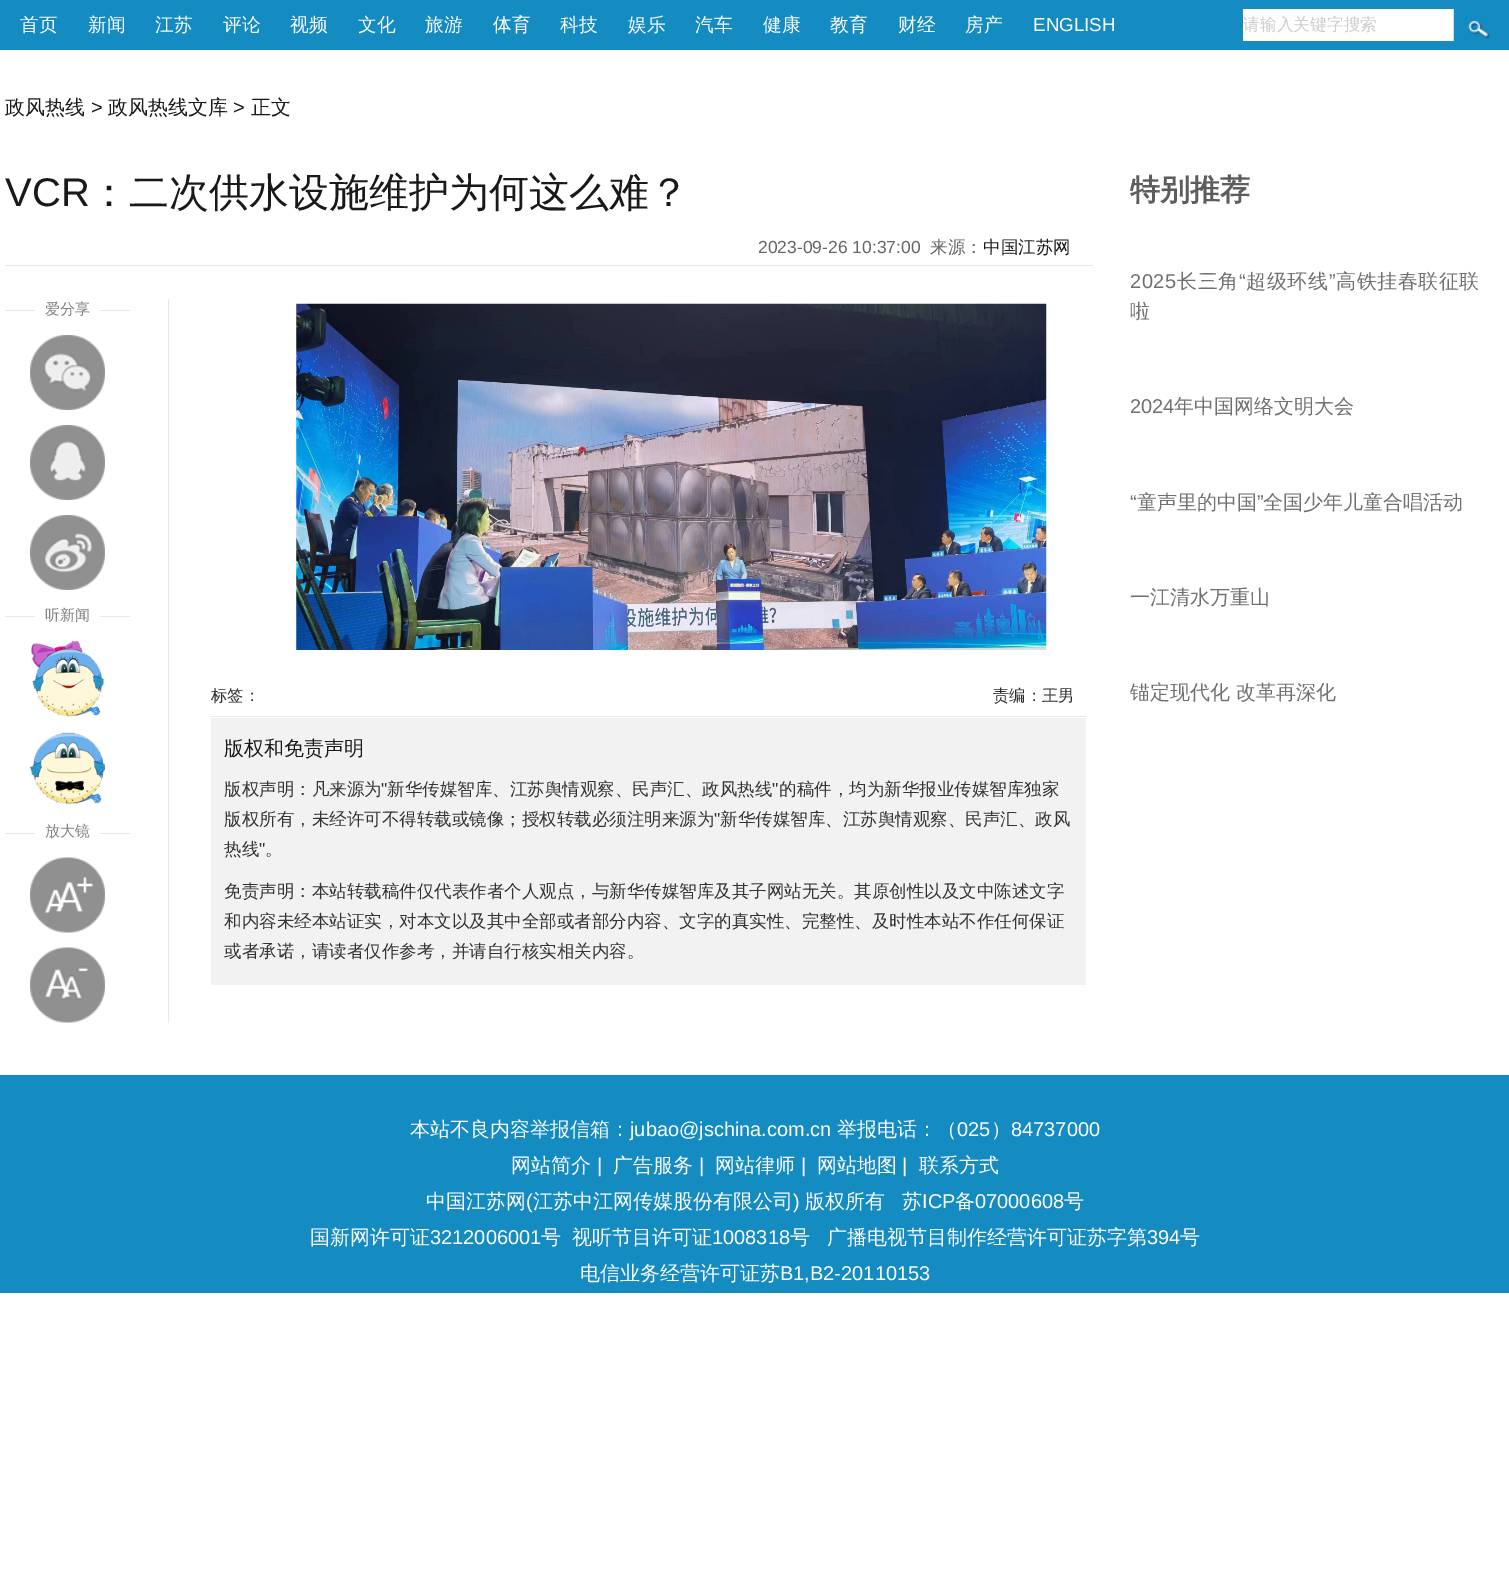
%!PS-Adobe-3.0
%%BoundingBox: 0 0 1509 1572
%%LanguageLevel: 3
%%Pages: 1
%%EndComments
%%BeginProlog
/drawimage { 5 dict begin { /h /w /y /x /name } { exch def } forall
  gsave x y translate w h scale
  w h 8 [w 0 0 h 0 0] name (r) file false 3 colorimage grestore end } def
%%EndProlog
%%BeginSetup
<< /PageSize [1509 1572] >> setpagedevice
%%EndSetup
%%Page: 1 1
0 1572 translate 1 -1 scale
4 setmiterlimit
1 setgray
0 0 1509 1572 rectfill
0.078 0.549 0.757 setrgbcolor
0 0 1509 50 rectfill
1 setgray
1243 9 211 32 rectfill
(images/1.raw) 1453 9 38 32 drawimage
0.91 setgray
5 265 1088 1 rectfill
168 299 1 724 rectfill
5 310 125 1 rectfill
1 setgray
35 310 65 1 rectfill
(images/2.raw) 30 335 75 75 drawimage
(images/3.raw) 30 425 75 75 drawimage
(images/4.raw) 30 515 75 75 drawimage
0.91 setgray
5 616 125 1 rectfill
1 setgray
35 616 65 1 rectfill
(images/5.raw) 31 641 73 76 drawimage
(images/6.raw) 30 732 75 72 drawimage
0.91 setgray
5 833 125 1 rectfill
1 setgray
35 833 65 1 rectfill
(images/7.raw) 30 857 75 76 drawimage
(images/8.raw) 30 947 75 76 drawimage
(images/9.raw) 296 303 751 347 drawimage
0.91 setgray
211 716 875 1 rectfill
0.949 setgray
211 718 875 267 rectfill
0.078 0.549 0.757 setrgbcolor
0 1075 1509 218 rectfill
/WenQuanYiZenHei-Medium [18.75 0 0 -18.75 0 0] selectfont
1 setgray
20 31 moveto (首页) show
88 31 moveto (新闻) show
155 31 moveto (江苏) show
223 31 moveto (评论) show
290 31 moveto (视频) show
358 31 moveto (文化) show
425 31 moveto (旅游) show
493 31 moveto (体育) show
560 31 moveto (科技) show
628 31 moveto (娱乐) show
695 31 moveto (汽车) show
763 31 moveto (健康) show
830 31 moveto (教育) show
898 31 moveto (财经) show
965 31 moveto (房产) show
/LiberationSans-Regular [18.75 0 0 -18.75 0 0] selectfont
1033 31 moveto (ENGLISH) show
/WenQuanYiZenHei-Medium [16.75 0 0 -16.75 0 0] selectfont
0.8 setgray
1243 30 moveto (请输入关键字搜索) show
/WenQuanYiZenHei-Medium [20 0 0 -20 0 0] selectfont
0.098 setgray
5 114 moveto (政风热线) show
/LiberationSans-Regular [20 0 0 -20 0 0] selectfont
91 114 moveto (>) show
/WenQuanYiZenHei-Medium [20 0 0 -20 0 0] selectfont
108 114 moveto (政风热线文库) show
/LiberationSans-Regular [20 0 0 -20 0 0] selectfont
233 114 moveto (>) show
/WenQuanYiZenHei-Medium [20 0 0 -20 0 0] selectfont
251 114 moveto (正文) show
/LiberationSans-Regular [40 0 0 -40 0 0] selectfont
5 206 moveto (VCR) show
/WenQuanYiZenHei-Medium [40 0 0 -40 0 0] selectfont
89 206 moveto (：二次供水设施维护为何这么难？) show
/LiberationSans-Regular [17.5 0 0 -17.5 0 0] selectfont
0.4 setgray
758 253 moveto (2023-09-26 10:37:00) show
/WenQuanYiZenHei-Medium [17.5 0 0 -17.5 0 0] selectfont
930 253 moveto (来源：) show
0.098 setgray
983 253 moveto (中国江苏网) show
/WenQuanYiZenHei-Medium [15 0 0 -15 0 0] selectfont
0.502 setgray
45 314 moveto (爱分享) show
45 620 moveto (听新闻) show
45 836 moveto (放大镜) show
/WenQuanYiZenHei-Medium [16.25 0 0 -16.25 0 0] selectfont
0.173 setgray
211 701 moveto (标签：) show
993 701 moveto (责编：王男) show
/WenQuanYiZenHei-Medium [20 0 0 -20 0 0] selectfont
0.098 setgray
224 755 moveto (版权和免责声明) show
/WenQuanYiZenHei-Medium [17.5 0 0 -17.5 0 0] selectfont
0.2 setgray
224 795 moveto (版权声明：凡来源为) show
/LiberationSans-Regular [17.5 0 0 -17.5 0 0] selectfont
381 795 moveto (") show
/WenQuanYiZenHei-Medium [17.5 0 0 -17.5 0 0] selectfont
387 795 moveto (新华传媒智库、江苏舆情观察、民声汇、政风热线) show
/LiberationSans-Regular [17.5 0 0 -17.5 0 0] selectfont
772 795 moveto (") show
/WenQuanYiZenHei-Medium [17.5 0 0 -17.5 0 0] selectfont
779 795 moveto (的稿件，均为新华报业传媒智库独家) show
224 825 moveto (版权所有，未经许可不得转载或镜像；授权转载必须注明来源为) show
/LiberationSans-Regular [17.5 0 0 -17.5 0 0] selectfont
714 825 moveto (") show
/WenQuanYiZenHei-Medium [17.5 0 0 -17.5 0 0] selectfont
720 825 moveto (新华传媒智库、江苏舆情观察、民声汇、政风) show
224 855 moveto (热线) show
/LiberationSans-Regular [17.5 0 0 -17.5 0 0] selectfont
259 855 moveto (") show
/WenQuanYiZenHei-Medium [17.5 0 0 -17.5 0 0] selectfont
265 855 moveto (。) show
224 897 moveto (免责声明：本站转载稿件仅代表作者个人观点，与新华传媒智库及其子网站无关。其原创性以及文中陈述文字) show
224 927 moveto (和内容未经本站证实，对本文以及其中全部或者部分内容、文字的真实性、完整性、及时性本站不作任何保证) show
224 957 moveto (或者承诺，请读者仅作参考，并请自行核实相关内容。) show
/WenQuanYiZenHei-Bold [30 0 0 -30 0 0] selectfont
0.365 setgray
1130 200 moveto (特别推荐) show
/LiberationSans-Regular [20 0 0 -20 0 0] selectfont
0.439 setgray
1130 288 moveto 0.5 0 (2025) ashow
/WenQuanYiZenHei-Medium [20 0 0 -20 0 0] selectfont
1177 288 moveto 0.5 0 (长三角) ashow
/LiberationSans-Regular [20 0 0 -20 0 0] selectfont
1239 288 moveto 0.5 0 (“) ashow
/WenQuanYiZenHei-Medium [20 0 0 -20 0 0] selectfont
1246 288 moveto 0.5 0 (超级环线) ashow
/LiberationSans-Regular [20 0 0 -20 0 0] selectfont
1329 288 moveto 0.5 0 (”) ashow
/WenQuanYiZenHei-Medium [20 0 0 -20 0 0] selectfont
1336 288 moveto 0.5 0 (高铁挂春联征联) ashow
1130 318 moveto (啦) show
/LiberationSans-Regular [20 0 0 -20 0 0] selectfont
1130 413 moveto (2024) show
/WenQuanYiZenHei-Medium [20 0 0 -20 0 0] selectfont
1174 413 moveto (年中国网络文明大会) show
/LiberationSans-Regular [20 0 0 -20 0 0] selectfont
1130 509 moveto (“) show
/WenQuanYiZenHei-Medium [20 0 0 -20 0 0] selectfont
1137 509 moveto (童声里的中国) show
/LiberationSans-Regular [20 0 0 -20 0 0] selectfont
1257 509 moveto (”) show
/WenQuanYiZenHei-Medium [20 0 0 -20 0 0] selectfont
1263 509 moveto (全国少年儿童合唱活动) show
1130 604 moveto (一江清水万重山) show
1130 699 moveto (锚定现代化 改革再深化) show
1 setgray
410 1136 moveto (本站不良内容举报信箱：) show
/LiberationSans-Regular [20 0 0 -20 0 0] selectfont
630 1136 moveto (jubao@jschina.com.cn) show
/WenQuanYiZenHei-Medium [20 0 0 -20 0 0] selectfont
837 1136 moveto (举报电话：（) show
/LiberationSans-Regular [20 0 0 -20 0 0] selectfont
957 1136 moveto (025) show
/WenQuanYiZenHei-Medium [20 0 0 -20 0 0] selectfont
991 1136 moveto (）) show
/LiberationSans-Regular [20 0 0 -20 0 0] selectfont
1011 1136 moveto (84737000) show
/WenQuanYiZenHei-Medium [20 0 0 -20 0 0] selectfont
511 1172 moveto (网站简介) show
/LiberationSans-Regular [20 0 0 -20 0 0] selectfont
597 1172 moveto (|) show
/WenQuanYiZenHei-Medium [20 0 0 -20 0 0] selectfont
613 1172 moveto (广告服务) show
/LiberationSans-Regular [20 0 0 -20 0 0] selectfont
699 1172 moveto (|) show
/WenQuanYiZenHei-Medium [20 0 0 -20 0 0] selectfont
715 1172 moveto (网站律师) show
/LiberationSans-Regular [20 0 0 -20 0 0] selectfont
801 1172 moveto (|) show
/WenQuanYiZenHei-Medium [20 0 0 -20 0 0] selectfont
817 1172 moveto (网站地图) show
/LiberationSans-Regular [20 0 0 -20 0 0] selectfont
902 1172 moveto (|) show
/WenQuanYiZenHei-Medium [20 0 0 -20 0 0] selectfont
919 1172 moveto (联系方式) show
426 1208 moveto (中国江苏网) show
/LiberationSans-Regular [20 0 0 -20 0 0] selectfont
526 1208 moveto (\() show
/WenQuanYiZenHei-Medium [20 0 0 -20 0 0] selectfont
533 1208 moveto (江苏中江网传媒股份有限公司) show
/LiberationSans-Regular [20 0 0 -20 0 0] selectfont
793 1208 moveto (\)) show
/WenQuanYiZenHei-Medium [20 0 0 -20 0 0] selectfont
805 1208 moveto (版权所有) show
902 1208 moveto (苏) show
/LiberationSans-Regular [20 0 0 -20 0 0] selectfont
922 1208 moveto (ICP) show
/WenQuanYiZenHei-Medium [20 0 0 -20 0 0] selectfont
955 1208 moveto (备) show
/LiberationSans-Regular [20 0 0 -20 0 0] selectfont
975 1208 moveto (07000608) show
/WenQuanYiZenHei-Medium [20 0 0 -20 0 0] selectfont
1064 1208 moveto (号) show
310 1244 moveto (国新网许可证) show
/LiberationSans-Regular [20 0 0 -20 0 0] selectfont
430 1244 moveto (3212006001) show
/WenQuanYiZenHei-Medium [20 0 0 -20 0 0] selectfont
541 1244 moveto (号) show
572 1244 moveto (视听节目许可证) show
/LiberationSans-Regular [20 0 0 -20 0 0] selectfont
712 1244 moveto (1008318) show
/WenQuanYiZenHei-Medium [20 0 0 -20 0 0] selectfont
790 1244 moveto (号) show
827 1244 moveto (广播电视节目制作经营许可证苏字第) show
/LiberationSans-Regular [20 0 0 -20 0 0] selectfont
1147 1244 moveto (394) show
/WenQuanYiZenHei-Medium [20 0 0 -20 0 0] selectfont
1180 1244 moveto (号) show
580 1280 moveto (电信业务经营许可证苏) show
/LiberationSans-Regular [20 0 0 -20 0 0] selectfont
780 1280 moveto (B1,B2-20110153) show
showpage
%%EOF
